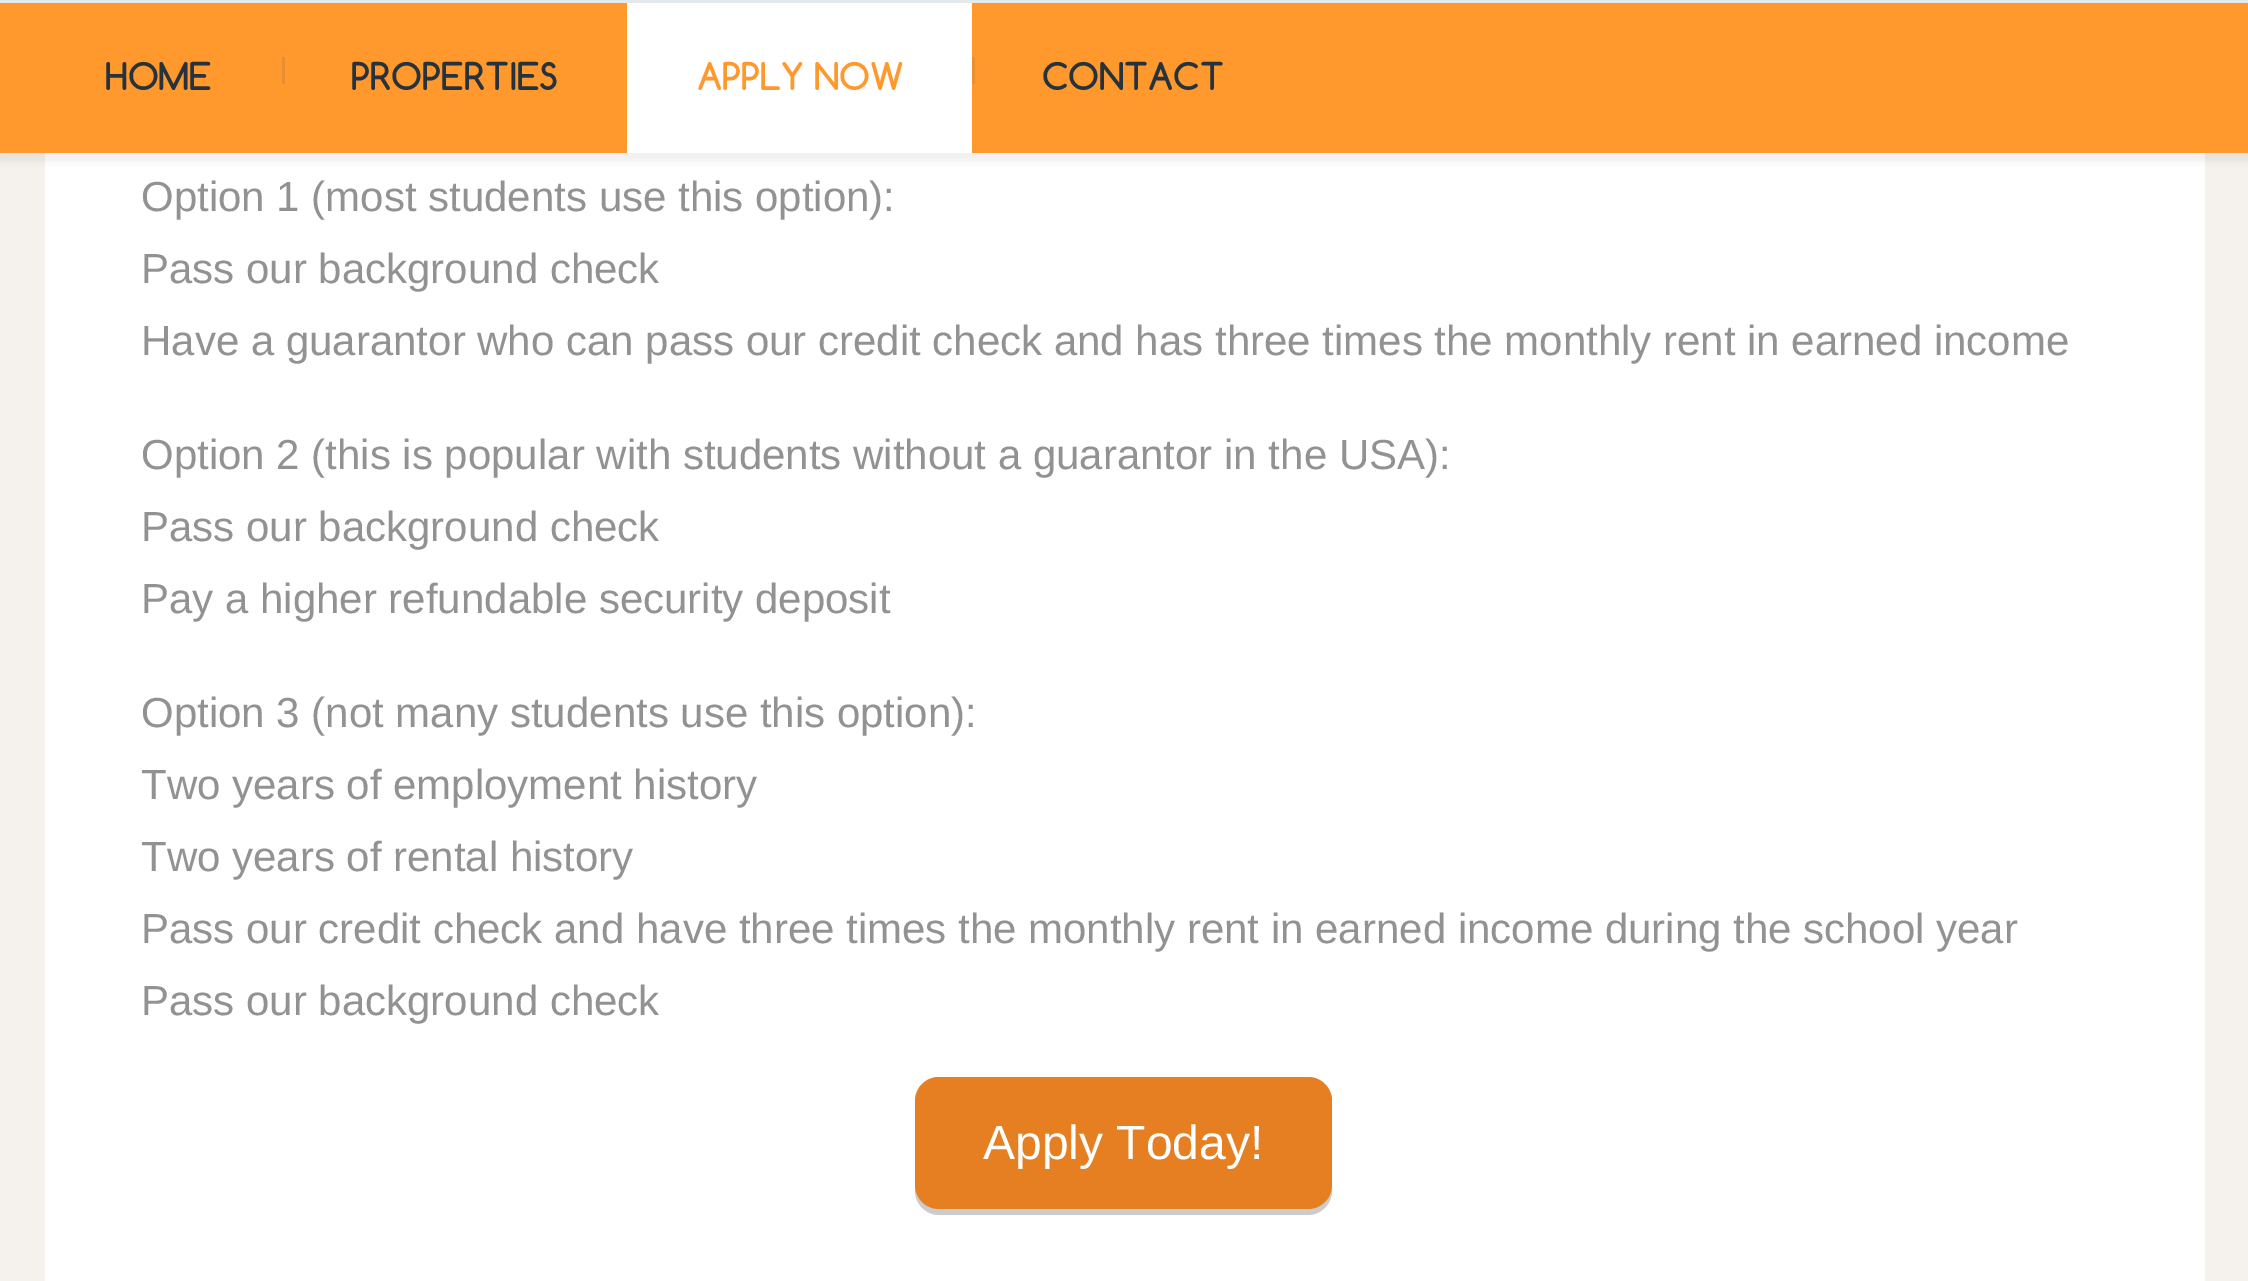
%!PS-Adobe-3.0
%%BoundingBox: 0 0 2248 1281
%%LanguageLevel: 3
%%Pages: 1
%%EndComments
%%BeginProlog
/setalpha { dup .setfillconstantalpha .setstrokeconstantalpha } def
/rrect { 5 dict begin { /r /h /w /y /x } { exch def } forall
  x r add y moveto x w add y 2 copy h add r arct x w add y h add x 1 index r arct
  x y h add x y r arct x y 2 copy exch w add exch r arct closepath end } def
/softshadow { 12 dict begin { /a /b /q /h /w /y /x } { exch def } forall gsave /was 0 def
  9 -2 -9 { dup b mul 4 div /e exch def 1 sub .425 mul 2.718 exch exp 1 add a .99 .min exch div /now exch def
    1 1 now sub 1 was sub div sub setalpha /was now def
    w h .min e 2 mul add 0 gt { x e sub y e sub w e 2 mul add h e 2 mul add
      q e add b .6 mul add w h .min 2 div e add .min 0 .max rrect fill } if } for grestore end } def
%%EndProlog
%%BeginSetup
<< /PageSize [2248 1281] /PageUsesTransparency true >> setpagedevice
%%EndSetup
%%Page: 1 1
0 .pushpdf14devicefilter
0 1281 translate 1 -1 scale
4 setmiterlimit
0.961 0.949 0.929 setrgbcolor
0 0 2248 1281 rectfill
1 setgray
45 153 2160 1128 rectfill
0 setgray
-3 3 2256 159 0 3 0.05 softshadow
1 0.6 0.176 setrgbcolor
0 3 2248 150 rectfill
0.894 0.914 0.933 setrgbcolor
0 0 2248 3 rectfill
0.914 0.561 0.184 setrgbcolor
282 57 3 27 rectfill
1 setgray
627 3 345 150 rectfill
0.914 0.561 0.184 setrgbcolor
972 57 3 27 rectfill
0.8 setgray
newpath 915 1185 moveto 915 1191 lineto 915 1204 926 1215 939 1215 curveto 1308 1215 lineto 1321 1215 1332 1204 1332 1191 curveto 1332 1185 lineto 1332 1198 1321 1209 1308 1209 curveto 939 1209 lineto 926 1209 915 1198 915 1185 curveto closepath fill
0.902 0.494 0.133 setrgbcolor
915 1077 417 132 24 rrect fill
/Comfortaa-Bold [36 0 0 -36 0 0] selectfont
0.149 0.196 0.235 setrgbcolor
105 90 moveto (HOME) show
351 90 moveto (PROPERTIES) show
1 0.6 0.176 setrgbcolor
697 90 moveto (APPLY NOW) show
0.149 0.196 0.235 setrgbcolor
1042 90 moveto (CONTACT) show
/LiberationSans-Regular [42 0 0 -42 0 0] selectfont
0.573 setgray
141 211 moveto (Option 1 \(most students use this option\):) show
141 283 moveto (Pass our background check) show
141 355 moveto (Have a guarantor who can pass our credit check and has three times the monthly rent in earned income) show
141 469 moveto (Option 2 \(this is popular with students without a guarantor in the USA\):) show
141 541 moveto (Pass our background check) show
141 613 moveto (Pay a higher refundable security deposit) show
141 727 moveto (Option 3 \(not many students use this option\):) show
141 799 moveto (Two years of employment history) show
141 871 moveto (Two years of rental history) show
141 943 moveto (Pass our credit check and have three times the monthly rent in earned income during the school year) show
141 1015 moveto (Pass our background check) show
/LiberationSans-Regular [48 0 0 -48 0 0] selectfont
1 setgray
983 1159 moveto (Apply Today!) show
.poppdf14devicefilter showpage
%%EOF
